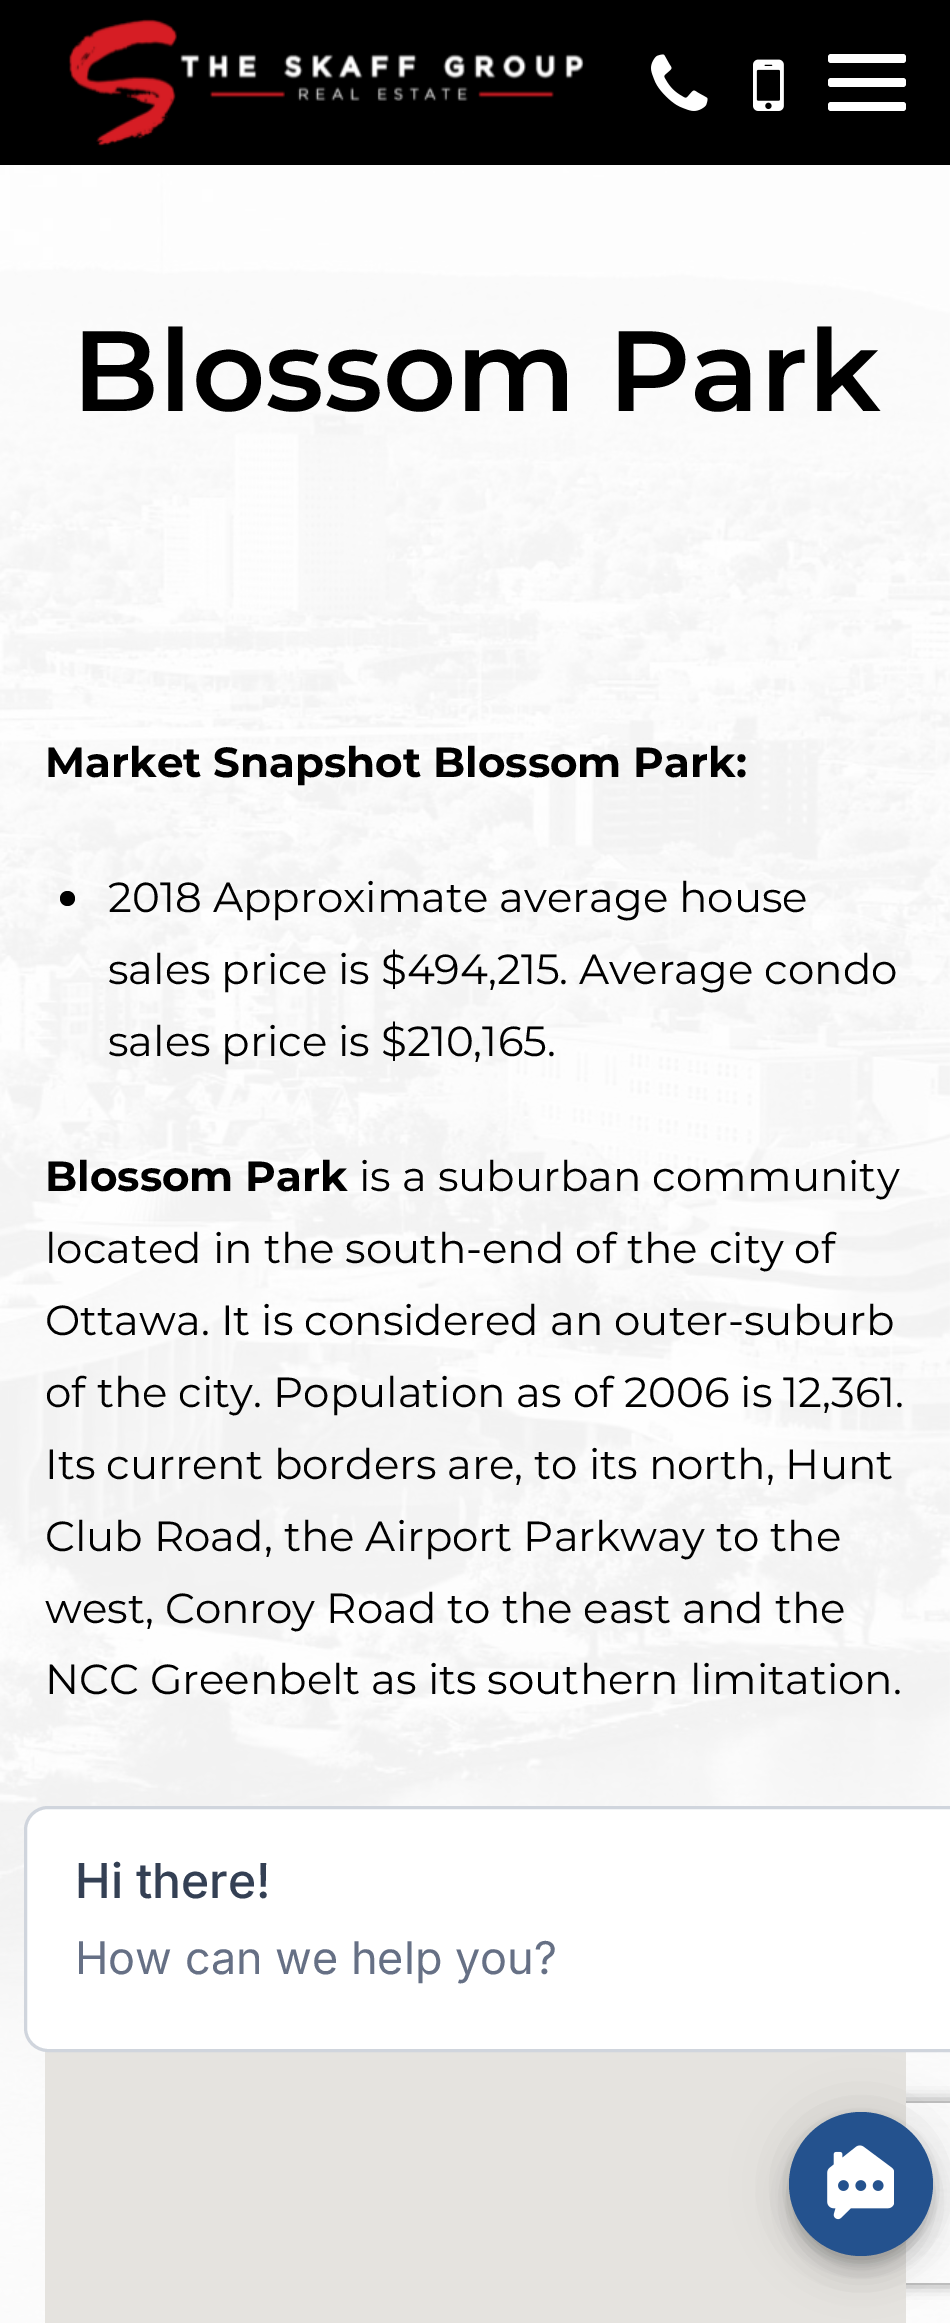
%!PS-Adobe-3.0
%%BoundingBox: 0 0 950 2323
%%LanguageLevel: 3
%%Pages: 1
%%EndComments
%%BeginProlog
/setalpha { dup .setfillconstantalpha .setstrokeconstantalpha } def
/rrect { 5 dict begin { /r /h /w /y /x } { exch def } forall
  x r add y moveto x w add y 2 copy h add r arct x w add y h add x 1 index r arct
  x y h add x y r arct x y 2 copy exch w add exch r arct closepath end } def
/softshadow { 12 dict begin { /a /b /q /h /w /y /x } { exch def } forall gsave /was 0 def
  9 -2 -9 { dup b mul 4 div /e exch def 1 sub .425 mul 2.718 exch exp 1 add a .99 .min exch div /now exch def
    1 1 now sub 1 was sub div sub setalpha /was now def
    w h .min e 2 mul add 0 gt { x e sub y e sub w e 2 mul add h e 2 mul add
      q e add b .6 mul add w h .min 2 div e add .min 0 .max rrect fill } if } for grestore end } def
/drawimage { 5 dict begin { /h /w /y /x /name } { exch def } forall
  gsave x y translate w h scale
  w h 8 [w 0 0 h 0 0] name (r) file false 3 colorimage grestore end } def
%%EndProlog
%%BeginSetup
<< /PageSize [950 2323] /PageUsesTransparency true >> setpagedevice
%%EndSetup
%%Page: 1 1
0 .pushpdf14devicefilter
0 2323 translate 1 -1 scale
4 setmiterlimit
1 setgray
0 0 950 2323 rectfill
(images/1.raw) 0 165 950 2158 drawimage
0 setgray
0 0 950 165 rectfill
(images/2.raw) 68 18 517 128 drawimage
(images/3.raw) 651 54 57 57 drawimage
(images/4.raw) 753 59 31 52 drawimage
1 setgray
828 54 78 9 3 rrect fill
828 78 78 9 3 rrect fill
828 102 78 9 3 rrect fill
0 setgray
newpath 67.5 898.5 7.5 0 360 arc closepath fill
gsave
newpath 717 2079 moveto 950 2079 lineto 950 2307 lineto 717 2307 lineto closepath 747 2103 moveto 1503 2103 lineto 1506.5 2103 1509 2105.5 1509 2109 curveto 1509 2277 lineto 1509 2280.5 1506.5 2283 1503 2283 curveto 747 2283 lineto 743.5 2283 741 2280.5 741 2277 curveto 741 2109 lineto 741 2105.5 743.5 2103 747 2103 curveto closepath eoclip newpath
0.502 setgray
741 2103 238 180 6 7.5 1 softshadow
grestore
0.898 0.89 0.875 setrgbcolor
45 2051 861 272 rectfill
0 setgray
789 2115 144 144 72 27 0.12 softshadow
1 setgray
25.5 1807.5 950 243 22.5 rrect gsave fill grestore
0.816 0.835 0.867 setrgbcolor
3 setlinewidth
stroke
0 setgray
789 2130 144 144 72 15 0.14 softshadow
792 2124 138 138 69 7.5 0.2 softshadow
0.141 0.322 0.557 setrgbcolor
newpath 861 2184 72 0 360 arc closepath fill
(images/5.raw) 827 2145 67 75 drawimage
/Montserrat-SemiBold [114 0 0 -114 0 0] selectfont
0 setgray
72 411 moveto (Blossom Park) show
/Montserrat-Bold [42 0 0 -42 0 0] selectfont
45 777 moveto (Market Snapshot Blossom Park:) show
/Montserrat-Regular [42 0 0 -42 0 0] selectfont
108 912 moveto (2018 Approximate average house) show
108 984 moveto (sales price is $494,215. Average condo) show
108 1056 moveto (sales price is $210,165.) show
/Montserrat-Bold [42 0 0 -42 0 0] selectfont
45 1191 moveto (Blossom Park) show
/Montserrat-Regular [42 0 0 -42 0 0] selectfont
359 1191 moveto (is a suburban community) show
45 1263 moveto (located in the south-end of the city of) show
45 1335 moveto (Ottawa. It is considered an outer-suburb) show
45 1407 moveto (of the city. Population as of 2006 is 12,361.) show
45 1479 moveto (Its current borders are, to its north, Hunt) show
45 1551 moveto (Club Road, the Airport Parkway to the) show
45 1623 moveto (west, Conroy Road to the east and the) show
45 1694 moveto (NCC Greenbelt as its southern limitation.) show
/Inter-Medium [48 0 0 -48 0 0] selectfont
0.204 0.251 0.329 setrgbcolor
75 1898 moveto (Hi there!) show
/Inter-Regular [45 0 0 -45 0 0] selectfont
0.4 0.439 0.522 setrgbcolor
75 1974 moveto (How can we help you?) show
.poppdf14devicefilter showpage
%%EOF
